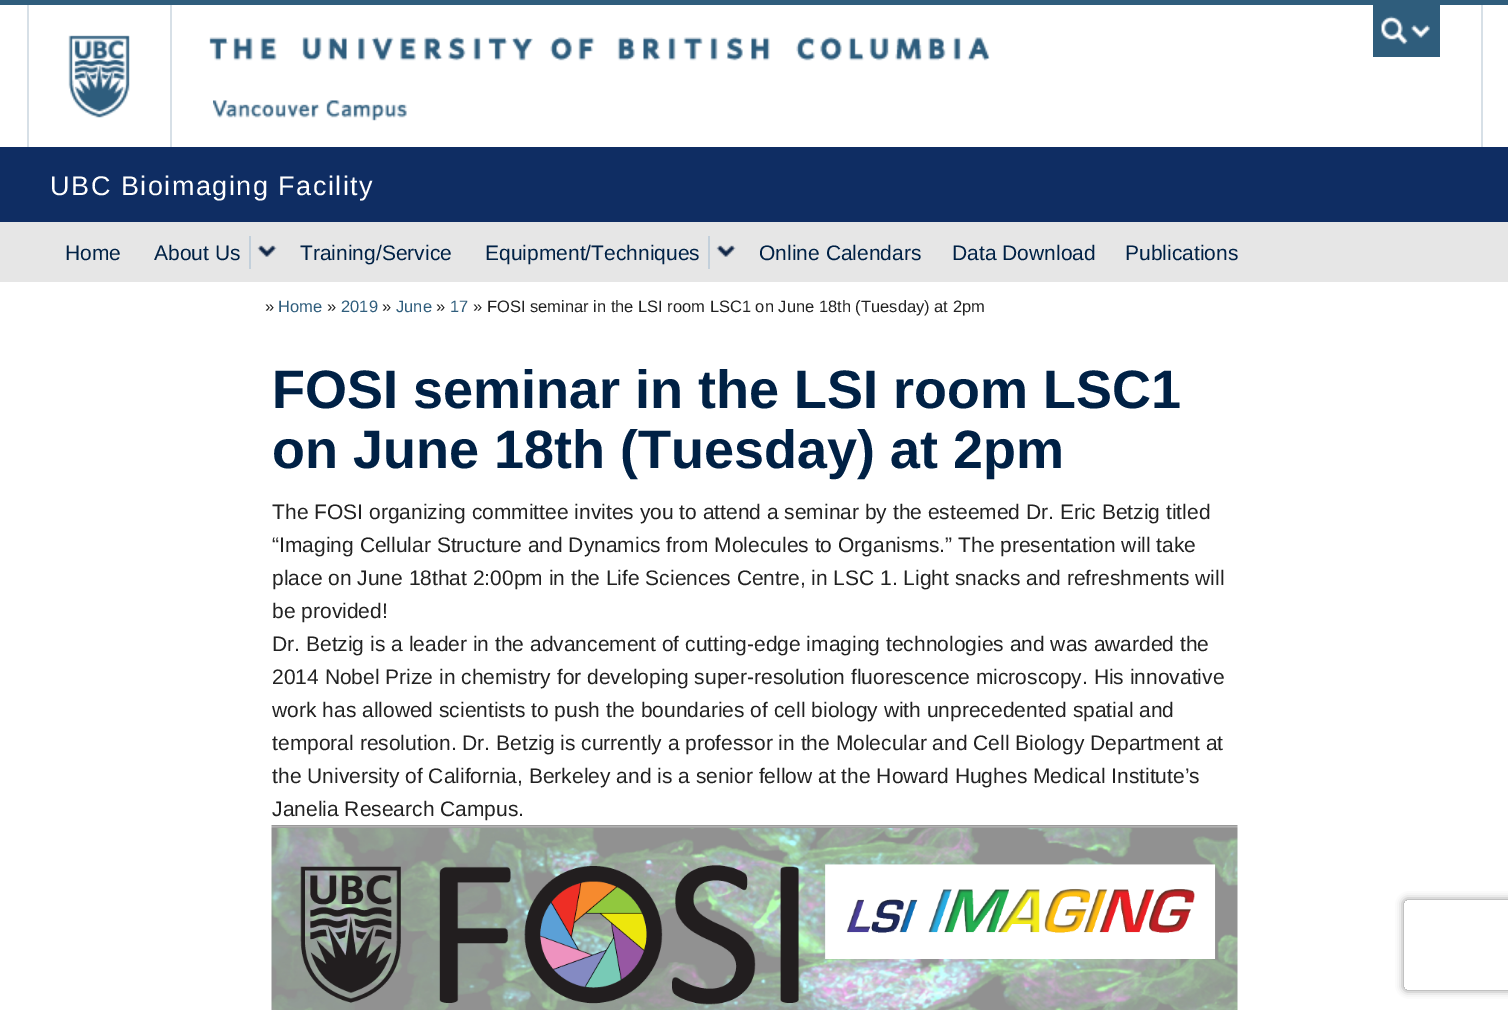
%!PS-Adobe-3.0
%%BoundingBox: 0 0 1508 1010
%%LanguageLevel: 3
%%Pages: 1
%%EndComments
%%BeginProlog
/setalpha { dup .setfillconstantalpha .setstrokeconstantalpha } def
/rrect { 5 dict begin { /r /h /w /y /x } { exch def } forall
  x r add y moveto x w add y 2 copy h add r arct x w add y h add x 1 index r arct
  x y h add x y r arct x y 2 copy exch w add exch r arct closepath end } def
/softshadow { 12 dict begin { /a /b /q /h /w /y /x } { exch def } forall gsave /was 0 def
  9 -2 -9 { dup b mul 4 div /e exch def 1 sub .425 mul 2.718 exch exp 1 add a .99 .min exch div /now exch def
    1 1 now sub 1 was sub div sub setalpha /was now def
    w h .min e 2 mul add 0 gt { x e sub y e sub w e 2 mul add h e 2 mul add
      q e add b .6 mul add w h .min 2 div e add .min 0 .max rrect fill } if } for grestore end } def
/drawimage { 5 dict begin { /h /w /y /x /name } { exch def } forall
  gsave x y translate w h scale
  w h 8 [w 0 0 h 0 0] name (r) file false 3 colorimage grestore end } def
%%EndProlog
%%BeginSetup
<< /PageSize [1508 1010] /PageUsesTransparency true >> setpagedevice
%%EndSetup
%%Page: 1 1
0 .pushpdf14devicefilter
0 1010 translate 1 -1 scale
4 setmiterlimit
0.902 setgray
0 0 1508 1010 rectfill
1 setgray
0 5 1508 142 rectfill
0.184 0.365 0.486 setrgbcolor
0 0 1508 5 rectfill
0.843 0.878 0.906 setrgbcolor
1481 5 2 142 rectfill
27 5 2 142 rectfill
(images/1.raw) 68 35 62 83 drawimage
(images/2.raw) 209 37 781 24 drawimage
170 5 2 142 rectfill
0.184 0.365 0.486 setrgbcolor
1373 5 67 52 rectfill
(images/3.raw) 1381 16 49 29 drawimage
(images/4.raw) 213 100 194 21 drawimage
0.059 0.176 0.388 setrgbcolor
0 147 1508 75 rectfill
0.765 0.816 0.859 setrgbcolor
249 236 2 33 rectfill
(images/5.raw) 257 245 20 12 drawimage
708 236 2 33 rectfill
(images/6.raw) 716 245 20 12 drawimage
1 setgray
0 282 1508 728 rectfill
(images/7.raw) 271 825 967 185 drawimage
gsave
newpath 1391 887 moveto 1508 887 lineto 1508 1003 lineto 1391 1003 lineto closepath 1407 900 moveto 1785 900 lineto 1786.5 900 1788 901.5 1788 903 curveto 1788 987 lineto 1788 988.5 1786.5 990 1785 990 curveto 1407 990 lineto 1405.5 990 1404 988.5 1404 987 curveto 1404 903 lineto 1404 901.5 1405.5 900 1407 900 curveto closepath eoclip newpath
0.502 setgray
1404 900 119 90 3 4 1 softshadow
grestore
/LiberationSans-Regular [27 0 0 -27 0 0] selectfont
50 195 moveto 1.5 0 (UBC Bioimaging Facility) ashow
/LiberationSans-Regular [21 0 0 -21 0 0] selectfont
0 0.129 0.271 setrgbcolor
65 260 moveto (Home) show
154 260 moveto (About Us) show
300 260 moveto (Training/Service) show
485 260 moveto (Equipment/Techniques) show
759 260 moveto (Online Calendars) show
952 260 moveto (Data Download) show
1125 260 moveto (Publications) show
/LiberationSans-Regular [16.5 0 0 -16.5 0 0] selectfont
0.133 setgray
265 312 moveto (») show
0.184 0.365 0.486 setrgbcolor
278 312 moveto (Home) show
0.133 setgray
327 312 moveto (») show
0.184 0.365 0.486 setrgbcolor
341 312 moveto (2019) show
0.133 setgray
382 312 moveto (») show
0.184 0.365 0.486 setrgbcolor
396 312 moveto (June) show
0.133 setgray
436 312 moveto (») show
0.184 0.365 0.486 setrgbcolor
450 312 moveto (17) show
0.133 setgray
473 312 moveto (» FOSI seminar in the LSI room LSC1 on June 18th \(Tuesday\) at 2pm) show
/LiberationSans-Bold [54 0 0 -54 0 0] selectfont
0 0.129 0.271 setrgbcolor
272 408 moveto (FOSI seminar in the LSI room LSC1) show
272 468 moveto (on June 18th \(Tuesday\) at 2pm) show
/LiberationSans-Regular [21 0 0 -21 0 0] selectfont
0.133 setgray
272 519 moveto (The FOSI organizing committee invites you to attend a seminar by the esteemed Dr. Eric Betzig titled) show
272 552 moveto (“Imaging Cellular Structure and Dynamics from Molecules to Organisms.” The presentation will take) show
272 585 moveto (place on June 18that 2:00pm in the Life Sciences Centre, in LSC 1. Light snacks and refreshments will) show
272 618 moveto (be provided!) show
272 651 moveto (Dr. Betzig is a leader in the advancement of cutting-edge imaging technologies and was awarded the) show
272 684 moveto (2014 Nobel Prize in chemistry for developing super-resolution fluorescence microscopy. His innovative) show
272 717 moveto (work has allowed scientists to push the boundaries of cell biology with unprecedented spatial and) show
272 750 moveto (temporal resolution. Dr. Betzig is currently a professor in the Molecular and Cell Biology Department at) show
272 783 moveto (the University of California, Berkeley and is a senior fellow at the Howard Hughes Medical Institute’s) show
272 816 moveto (Janelia Research Campus.) show
.poppdf14devicefilter showpage
%%EOF
